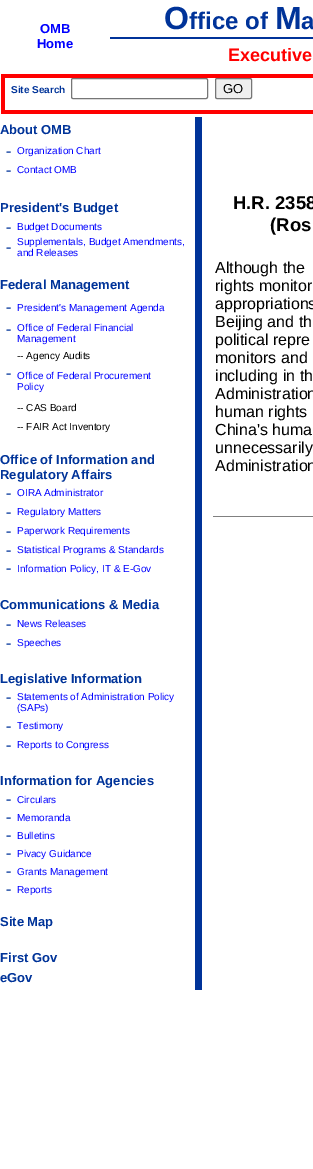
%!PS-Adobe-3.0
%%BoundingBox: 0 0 313 1169
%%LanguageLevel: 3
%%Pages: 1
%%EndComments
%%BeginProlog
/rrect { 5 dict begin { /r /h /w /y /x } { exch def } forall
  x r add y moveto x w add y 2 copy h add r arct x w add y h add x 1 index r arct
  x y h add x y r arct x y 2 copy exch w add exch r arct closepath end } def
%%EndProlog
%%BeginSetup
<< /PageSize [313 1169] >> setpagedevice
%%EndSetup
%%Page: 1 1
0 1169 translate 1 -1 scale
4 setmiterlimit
1 setgray
0 0 313 1169 rectfill
0 0.2 0.6 setrgbcolor
110 37 203 2 rectfill
1 0 0 setrgbcolor
1 74 312 40 rectfill
1 setgray
5 78 308 32 rectfill
0.463 setgray
71.5 78.5 136 20 1.5 rrect stroke
0.937 setgray
215.5 78.5 36 20 1.5 rrect gsave fill grestore
0.463 setgray
stroke
0 0.2 0.6 setrgbcolor
195 117 7 873 rectfill
0.502 setgray
213 516 100 1 rectfill
/LiberationSans-Bold [32 0 0 -32 0 0] selectfont
0 0.2 0.6 setrgbcolor
164 29 moveto (O) show
/LiberationSans-Bold [24 0 0 -24 0 0] selectfont
189 29 moveto (ffice of) show
/LiberationSans-Bold [32 0 0 -32 0 0] selectfont
275 29 moveto (M) show
/LiberationSans-Bold [24 0 0 -24 0 0] selectfont
301 29 moveto (a) show
/LiberationSans-Bold [13 0 0 -13 0 0] selectfont
0 0 1 setrgbcolor
40 33 moveto (OMB) show
37 48 moveto (Home) show
/LiberationSans-Bold [18 0 0 -18 0 0] selectfont
1 0 0 setrgbcolor
228 61 moveto (Executive) show
/LiberationSans-Bold [10 0 0 -10 0 0] selectfont
0 0.2 0.6 setrgbcolor
11 93 moveto (Site Search) show
/LiberationSans-Regular [13 0 0 -13 0 0] selectfont
0 setgray
223 93 moveto (GO) show
/LiberationSans-Bold [13 0 0 -13 0 0] selectfont
0 0.2 0.6 setrgbcolor
0 134 moveto (About OMB) show
/LiberationSerif-Regular [16 0 0 -16 0 0] selectfont
6 156 moveto (-) show
/LiberationSans-Regular [10 0 0 -10 0 0] selectfont
0 0 1 setrgbcolor
17 154 moveto (Organization Chart) show
/LiberationSerif-Regular [16 0 0 -16 0 0] selectfont
0 0.2 0.6 setrgbcolor
6 175 moveto (-) show
/LiberationSans-Regular [10 0 0 -10 0 0] selectfont
0 0 1 setrgbcolor
17 173 moveto (Contact OMB) show
/LiberationSans-Bold [13 0 0 -13 0 0] selectfont
0 0.2 0.6 setrgbcolor
0 212 moveto (President's Budget) show
/LiberationSerif-Regular [16 0 0 -16 0 0] selectfont
6 232 moveto (-) show
/LiberationSans-Regular [10 0 0 -10 0 0] selectfont
0 0 1 setrgbcolor
17 230 moveto (Budget Documents) show
/LiberationSerif-Regular [16 0 0 -16 0 0] selectfont
0 0.2 0.6 setrgbcolor
6 252 moveto (-) show
/LiberationSans-Regular [10 0 0 -10 0 0] selectfont
0 0 1 setrgbcolor
17 245 moveto (Supplementals, Budget Amendments,) show
17 256 moveto (and Releases) show
/LiberationSans-Bold [13 0 0 -13 0 0] selectfont
0 0.2 0.6 setrgbcolor
0 289 moveto (Federal Management) show
/LiberationSerif-Regular [16 0 0 -16 0 0] selectfont
6 312 moveto (-) show
/LiberationSans-Regular [10 0 0 -10 0 0] selectfont
0 0 1 setrgbcolor
17 311 moveto (President's Management Agenda) show
/LiberationSerif-Regular [16 0 0 -16 0 0] selectfont
0 0.2 0.6 setrgbcolor
6 334 moveto (-) show
/LiberationSans-Regular [10 0 0 -10 0 0] selectfont
0 0 1 setrgbcolor
17 331 moveto (Office of Federal Financial) show
17 342 moveto (Management) show
0 setgray
17 359 moveto (-- Agency Audits) show
/LiberationSerif-Regular [16 0 0 -16 0 0] selectfont
0 0.2 0.6 setrgbcolor
6 378 moveto (-) show
/LiberationSans-Regular [10 0 0 -10 0 0] selectfont
0 0 1 setrgbcolor
17 379 moveto (Office of Federal Procurement) show
17 390 moveto (Policy) show
0 setgray
17 411 moveto (-- CAS Board) show
17 430 moveto (-- FAIR Act Inventory) show
/LiberationSans-Bold [13 0 0 -13 0 0] selectfont
0 0.2 0.6 setrgbcolor
0 464 moveto (Office of Information and) show
0 479 moveto (Regulatory Affairs) show
/LiberationSerif-Regular [16 0 0 -16 0 0] selectfont
6 498 moveto (-) show
/LiberationSans-Regular [10 0 0 -10 0 0] selectfont
0 0 1 setrgbcolor
17 496 moveto (OIRA Administrator) show
/LiberationSerif-Regular [16 0 0 -16 0 0] selectfont
0 0.2 0.6 setrgbcolor
6 517 moveto (-) show
/LiberationSans-Regular [10 0 0 -10 0 0] selectfont
0 0 1 setrgbcolor
17 515 moveto (Regulatory Matters) show
/LiberationSerif-Regular [16 0 0 -16 0 0] selectfont
0 0.2 0.6 setrgbcolor
6 536 moveto (-) show
/LiberationSans-Regular [10 0 0 -10 0 0] selectfont
0 0 1 setrgbcolor
17 534 moveto (Paperwork Requirements) show
/LiberationSerif-Regular [16 0 0 -16 0 0] selectfont
0 0.2 0.6 setrgbcolor
6 555 moveto (-) show
/LiberationSans-Regular [10 0 0 -10 0 0] selectfont
0 0 1 setrgbcolor
17 553 moveto (Statistical Programs & Standards) show
/LiberationSerif-Regular [16 0 0 -16 0 0] selectfont
0 0.2 0.6 setrgbcolor
6 573 moveto (-) show
/LiberationSans-Regular [10 0 0 -10 0 0] selectfont
0 0 1 setrgbcolor
17 572 moveto (Information Policy, IT & E-Gov) show
/LiberationSans-Bold [13 0 0 -13 0 0] selectfont
0 0.2 0.6 setrgbcolor
0 609 moveto (Communications & Media) show
/LiberationSerif-Regular [16 0 0 -16 0 0] selectfont
6 629 moveto (-) show
/LiberationSans-Regular [10 0 0 -10 0 0] selectfont
0 0 1 setrgbcolor
17 627 moveto (News Releases) show
/LiberationSerif-Regular [16 0 0 -16 0 0] selectfont
0 0.2 0.6 setrgbcolor
6 648 moveto (-) show
/LiberationSans-Regular [10 0 0 -10 0 0] selectfont
0 0 1 setrgbcolor
17 646 moveto (Speeches) show
/LiberationSans-Bold [13 0 0 -13 0 0] selectfont
0 0.2 0.6 setrgbcolor
0 683 moveto (Legislative Information) show
/LiberationSerif-Regular [16 0 0 -16 0 0] selectfont
6 702 moveto (-) show
/LiberationSans-Regular [10 0 0 -10 0 0] selectfont
0 0 1 setrgbcolor
17 700 moveto (Statements of Administration Policy) show
17 711 moveto (\(SAPs\)) show
/LiberationSerif-Regular [16 0 0 -16 0 0] selectfont
0 0.2 0.6 setrgbcolor
6 731 moveto (-) show
/LiberationSans-Regular [10 0 0 -10 0 0] selectfont
0 0 1 setrgbcolor
17 729 moveto (Testimony) show
/LiberationSerif-Regular [16 0 0 -16 0 0] selectfont
0 0.2 0.6 setrgbcolor
6 750 moveto (-) show
/LiberationSans-Regular [10 0 0 -10 0 0] selectfont
0 0 1 setrgbcolor
17 748 moveto (Reports to Congress) show
/LiberationSans-Bold [13 0 0 -13 0 0] selectfont
0 0.2 0.6 setrgbcolor
0 785 moveto (Information for Agencies) show
/LiberationSerif-Regular [16 0 0 -16 0 0] selectfont
6 804 moveto (-) show
/LiberationSans-Regular [10 0 0 -10 0 0] selectfont
0 0 1 setrgbcolor
17 803 moveto (Circulars) show
/LiberationSerif-Regular [16 0 0 -16 0 0] selectfont
0 0.2 0.6 setrgbcolor
6 822 moveto (-) show
/LiberationSans-Regular [10 0 0 -10 0 0] selectfont
0 0 1 setrgbcolor
17 821 moveto (Memoranda) show
/LiberationSerif-Regular [16 0 0 -16 0 0] selectfont
0 0.2 0.6 setrgbcolor
6 840 moveto (-) show
/LiberationSans-Regular [10 0 0 -10 0 0] selectfont
0 0 1 setrgbcolor
17 839 moveto (Bulletins) show
/LiberationSerif-Regular [16 0 0 -16 0 0] selectfont
0 0.2 0.6 setrgbcolor
6 858 moveto (-) show
/LiberationSans-Regular [10 0 0 -10 0 0] selectfont
0 0 1 setrgbcolor
17 857 moveto (Pivacy Guidance) show
/LiberationSerif-Regular [16 0 0 -16 0 0] selectfont
0 0.2 0.6 setrgbcolor
6 876 moveto (-) show
/LiberationSans-Regular [10 0 0 -10 0 0] selectfont
0 0 1 setrgbcolor
17 875 moveto (Grants Management) show
/LiberationSerif-Regular [16 0 0 -16 0 0] selectfont
0 0.2 0.6 setrgbcolor
6 894 moveto (-) show
/LiberationSans-Regular [10 0 0 -10 0 0] selectfont
0 0 1 setrgbcolor
17 893 moveto (Reports) show
/LiberationSans-Bold [13 0 0 -13 0 0] selectfont
0 0.2 0.6 setrgbcolor
0 926 moveto (Site Map) show
0 962 moveto (First Gov) show
0 982 moveto (eGov) show
/LiberationSans-Bold [18.5 0 0 -18.5 0 0] selectfont
0 setgray
233 209 moveto (H.R. 2358) show
270 231 moveto (\(Ros) show
/LiberationSans-Regular [16 0 0 -16 0 0] selectfont
215 273 moveto (Although the) show
215 291 moveto (rights monitor) show
215 309 moveto (appropriations) show
215 327 moveto (Beijing and th) show
215 345 moveto (political repre) show
215 363 moveto (monitors and) show
215 381 moveto (including in th) show
215 399 moveto (Administration) show
215 417 moveto (human rights) show
215 435 moveto (China's huma) show
215 453 moveto (unnecessarily) show
215 471 moveto (Administration) show
showpage
%%EOF
